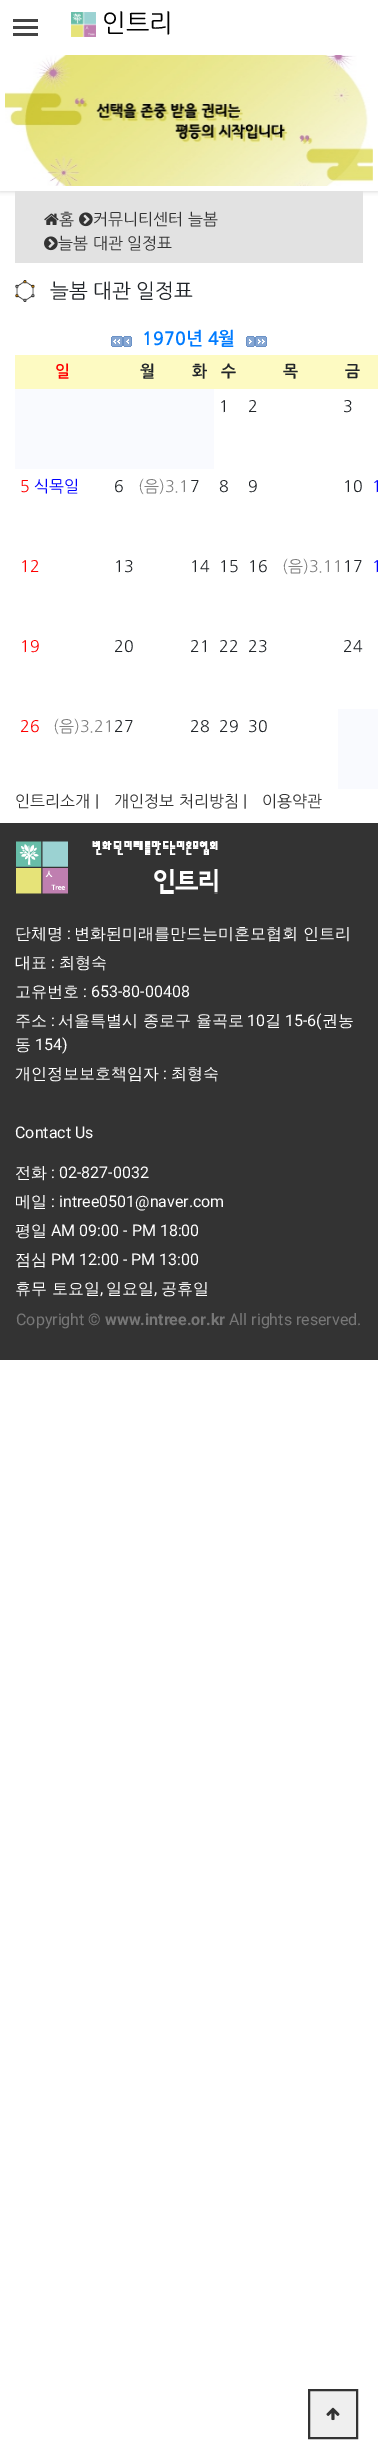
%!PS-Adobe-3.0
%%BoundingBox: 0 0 378 2459
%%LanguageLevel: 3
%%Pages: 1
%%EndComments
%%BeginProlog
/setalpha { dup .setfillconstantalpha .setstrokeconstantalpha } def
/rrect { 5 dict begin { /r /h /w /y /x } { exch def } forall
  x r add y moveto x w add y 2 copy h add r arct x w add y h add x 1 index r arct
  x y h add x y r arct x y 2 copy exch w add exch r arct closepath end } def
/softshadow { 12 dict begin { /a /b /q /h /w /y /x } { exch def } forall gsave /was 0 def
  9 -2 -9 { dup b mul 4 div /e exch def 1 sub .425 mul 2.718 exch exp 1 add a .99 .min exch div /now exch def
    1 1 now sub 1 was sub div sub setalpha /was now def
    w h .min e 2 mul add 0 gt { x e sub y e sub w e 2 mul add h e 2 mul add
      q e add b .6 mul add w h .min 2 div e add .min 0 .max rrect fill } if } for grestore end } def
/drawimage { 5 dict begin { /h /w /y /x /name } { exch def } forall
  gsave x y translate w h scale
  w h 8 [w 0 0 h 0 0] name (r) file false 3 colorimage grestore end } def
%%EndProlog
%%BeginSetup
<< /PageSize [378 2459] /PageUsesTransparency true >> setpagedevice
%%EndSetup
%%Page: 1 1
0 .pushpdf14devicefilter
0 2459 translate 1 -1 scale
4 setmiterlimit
1 setgray
0 0 378 2459 rectfill
gsave
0 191 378 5 rectclip
0.8 setgray
0 50 378 141 0 2.5 1 softshadow
grestore
0 46 378 4 rectfill
0.267 setgray
13 19 25 3 rectfill
13 26 25 3 rectfill
13 33 25 3 rectfill
(images/1.raw) 71 12 25 25 drawimage
(images/2.raw) 5 55 368 131 drawimage
0.886 setgray
15 191 348 72 rectfill
(images/3.raw) 44 213 15 12 drawimage
(images/4.raw) 79 212 14 15 drawimage
(images/4.raw) 44 236 14 15 drawimage
(images/5.raw) 15 280 20 22 drawimage
(images/6.raw) 111 336 12 11 drawimage
(images/7.raw) 123 336 9 11 drawimage
(images/8.raw) 246 336 9 11 drawimage
(images/9.raw) 255 336 12 11 drawimage
0.992 0.98 0.761 setrgbcolor
15 355 363 34 rectfill
0.976 0.98 0.996 setrgbcolor
15 389 199 80 rectfill
338 709 40 80 rectfill
0.2 setgray
0 823 378 537 rectfill
(images/10.raw) 16 841 202 53 drawimage
0.937 setgray
newpath 309 2390 moveto 357 2390 lineto 357 2438 lineto 309 2438 lineto closepath gsave fill grestore
0.2 setgray
2 setlinewidth
stroke
(images/11.raw) 326 2407 14 14 drawimage
/NanumGothic-Regular [25 0 0 -25 0 0] selectfont
0 setgray
102 32 moveto (인트리) show
/NanumGothic-Regular [16 0 0 -16 0 0] selectfont
0.2 setgray
59 225 moveto (홈) show
93 225 moveto (커뮤니티센터 늘봄) show
58 249 moveto (늘봄 대관 일정표) show
/NanumGothic-Regular [20 0 0 -20 0 0] selectfont
0.129 0.145 0.161 setrgbcolor
50 298 moveto (늘봄 대관 일정표) show
/NanumGothic-Bold [18 0 0 -18 0 0] selectfont
0 0.482 1 setrgbcolor
142 345 moveto (1970년 4월) show
/NanumGothic-Bold [16 0 0 -16 0 0] selectfont
1 0 0 setrgbcolor
55 377 moveto (일) show
0.129 0.145 0.161 setrgbcolor
140 377 moveto (월) show
192 377 moveto (화) show
221 377 moveto (수) show
283 377 moveto (목) show
345 377 moveto (금) show
/NanumGothic-Regular [16 0 0 -16 0 0] selectfont
219 412 moveto (1) show
248 412 moveto (2) show
343 412 moveto (3) show
1 0 0 setrgbcolor
20 492 moveto (5) show
0 0 1 setrgbcolor
34 492 moveto (식목일) show
0.129 0.145 0.161 setrgbcolor
114 492 moveto (6) show
0.502 setgray
138 492 moveto (\(음\)3.1) show
0.129 0.145 0.161 setrgbcolor
190 492 moveto (7) show
219 492 moveto (8) show
248 492 moveto (9) show
343 492 moveto (10) show
0 0 1 setrgbcolor
372 492 moveto (1) show
1 0 0 setrgbcolor
20 572 moveto (12) show
0.129 0.145 0.161 setrgbcolor
114 572 moveto (13) show
190 572 moveto (14) show
219 572 moveto (15) show
248 572 moveto (16) show
0.502 setgray
282 572 moveto (\(음\)3.11) show
0.129 0.145 0.161 setrgbcolor
343 572 moveto (17) show
0 0 1 setrgbcolor
372 572 moveto (1) show
1 0 0 setrgbcolor
20 652 moveto (19) show
0.129 0.145 0.161 setrgbcolor
114 652 moveto (20) show
190 652 moveto (21) show
219 652 moveto (22) show
248 652 moveto (23) show
343 652 moveto (24) show
1 0 0 setrgbcolor
20 732 moveto (26) show
0.502 setgray
53 732 moveto (\(음\)3.21) show
0.129 0.145 0.161 setrgbcolor
114 732 moveto (27) show
190 732 moveto (28) show
219 732 moveto (29) show
248 732 moveto (30) show
0.2 setgray
15 807 moveto (인트리소개 |) show
114 807 moveto (개인정보 처리방침 |) show
262 807 moveto (이용약관) show
/WenQuanYiZenHei-Medium [16 0 0 -16 0 0] selectfont
1 setgray
15 939 moveto (단체명) show
/Roboto-Regular [16 0 0 -16 0 0] selectfont
67 939 moveto (:) show
/WenQuanYiZenHei-Medium [16 0 0 -16 0 0] selectfont
74 939 moveto (변화된미래를만드는미혼모협회 인트리) show
15 968 moveto (대표) show
/Roboto-Regular [16 0 0 -16 0 0] selectfont
51 968 moveto (:) show
/WenQuanYiZenHei-Medium [16 0 0 -16 0 0] selectfont
59 968 moveto (최형숙) show
15 997 moveto (고유번호) show
/Roboto-Regular [16 0 0 -16 0 0] selectfont
83 997 moveto (: 653-80-00408) show
/WenQuanYiZenHei-Medium [16 0 0 -16 0 0] selectfont
15 1026 moveto (주소) show
/Roboto-Regular [16 0 0 -16 0 0] selectfont
51 1026 moveto (:) show
/WenQuanYiZenHei-Medium [16 0 0 -16 0 0] selectfont
58 1026 moveto (서울특별시 종로구 율곡로) show
/Roboto-Regular [16 0 0 -16 0 0] selectfont
247 1026 moveto (10) show
/WenQuanYiZenHei-Medium [16 0 0 -16 0 0] selectfont
265 1026 moveto (길) show
/Roboto-Regular [16 0 0 -16 0 0] selectfont
285 1026 moveto (15-6\() show
/WenQuanYiZenHei-Medium [16 0 0 -16 0 0] selectfont
322 1026 moveto (권농) show
15 1050 moveto (동) show
/Roboto-Regular [16 0 0 -16 0 0] selectfont
35 1050 moveto (154\)) show
/WenQuanYiZenHei-Medium [16 0 0 -16 0 0] selectfont
15 1079 moveto (개인정보보호책임자) show
/Roboto-Regular [16 0 0 -16 0 0] selectfont
163 1079 moveto (:) show
/WenQuanYiZenHei-Medium [16 0 0 -16 0 0] selectfont
171 1079 moveto (최형숙) show
/Roboto-Regular [16 0 0 -16 0 0] selectfont
15 1138 moveto (Contact Us) show
/WenQuanYiZenHei-Medium [16 0 0 -16 0 0] selectfont
15 1178 moveto (전화) show
/Roboto-Regular [16 0 0 -16 0 0] selectfont
51 1178 moveto (: 02-827-0032) show
/WenQuanYiZenHei-Medium [16 0 0 -16 0 0] selectfont
15 1207 moveto (메일) show
/Roboto-Regular [16 0 0 -16 0 0] selectfont
51 1207 moveto (: intree0501@naver.com) show
/WenQuanYiZenHei-Medium [16 0 0 -16 0 0] selectfont
15 1236 moveto (평일) show
/Roboto-Regular [16 0 0 -16 0 0] selectfont
51 1236 moveto (AM 09:00 - PM 18:00) show
/WenQuanYiZenHei-Medium [16 0 0 -16 0 0] selectfont
15 1265 moveto (점심) show
/Roboto-Regular [16 0 0 -16 0 0] selectfont
51 1265 moveto (PM 12:00 - PM 13:00) show
/WenQuanYiZenHei-Medium [16 0 0 -16 0 0] selectfont
15 1294 moveto (휴무 토요일) show
/Roboto-Regular [16 0 0 -16 0 0] selectfont
100 1294 moveto (,) show
/WenQuanYiZenHei-Medium [16 0 0 -16 0 0] selectfont
106 1294 moveto (일요일) show
/Roboto-Regular [16 0 0 -16 0 0] selectfont
154 1294 moveto (,) show
/WenQuanYiZenHei-Medium [16 0 0 -16 0 0] selectfont
161 1294 moveto (공휴일) show
/Roboto-Regular [16 0 0 -16 0 0] selectfont
0.467 setgray
16 1325 moveto (Copyright ©) show
/Roboto-Bold [16 0 0 -16 0 0] selectfont
105 1325 moveto (www.intree.or.kr) show
/Roboto-Regular [16 0 0 -16 0 0] selectfont
229 1325 moveto (All rights reserved.) show
.poppdf14devicefilter showpage
%%EOF
